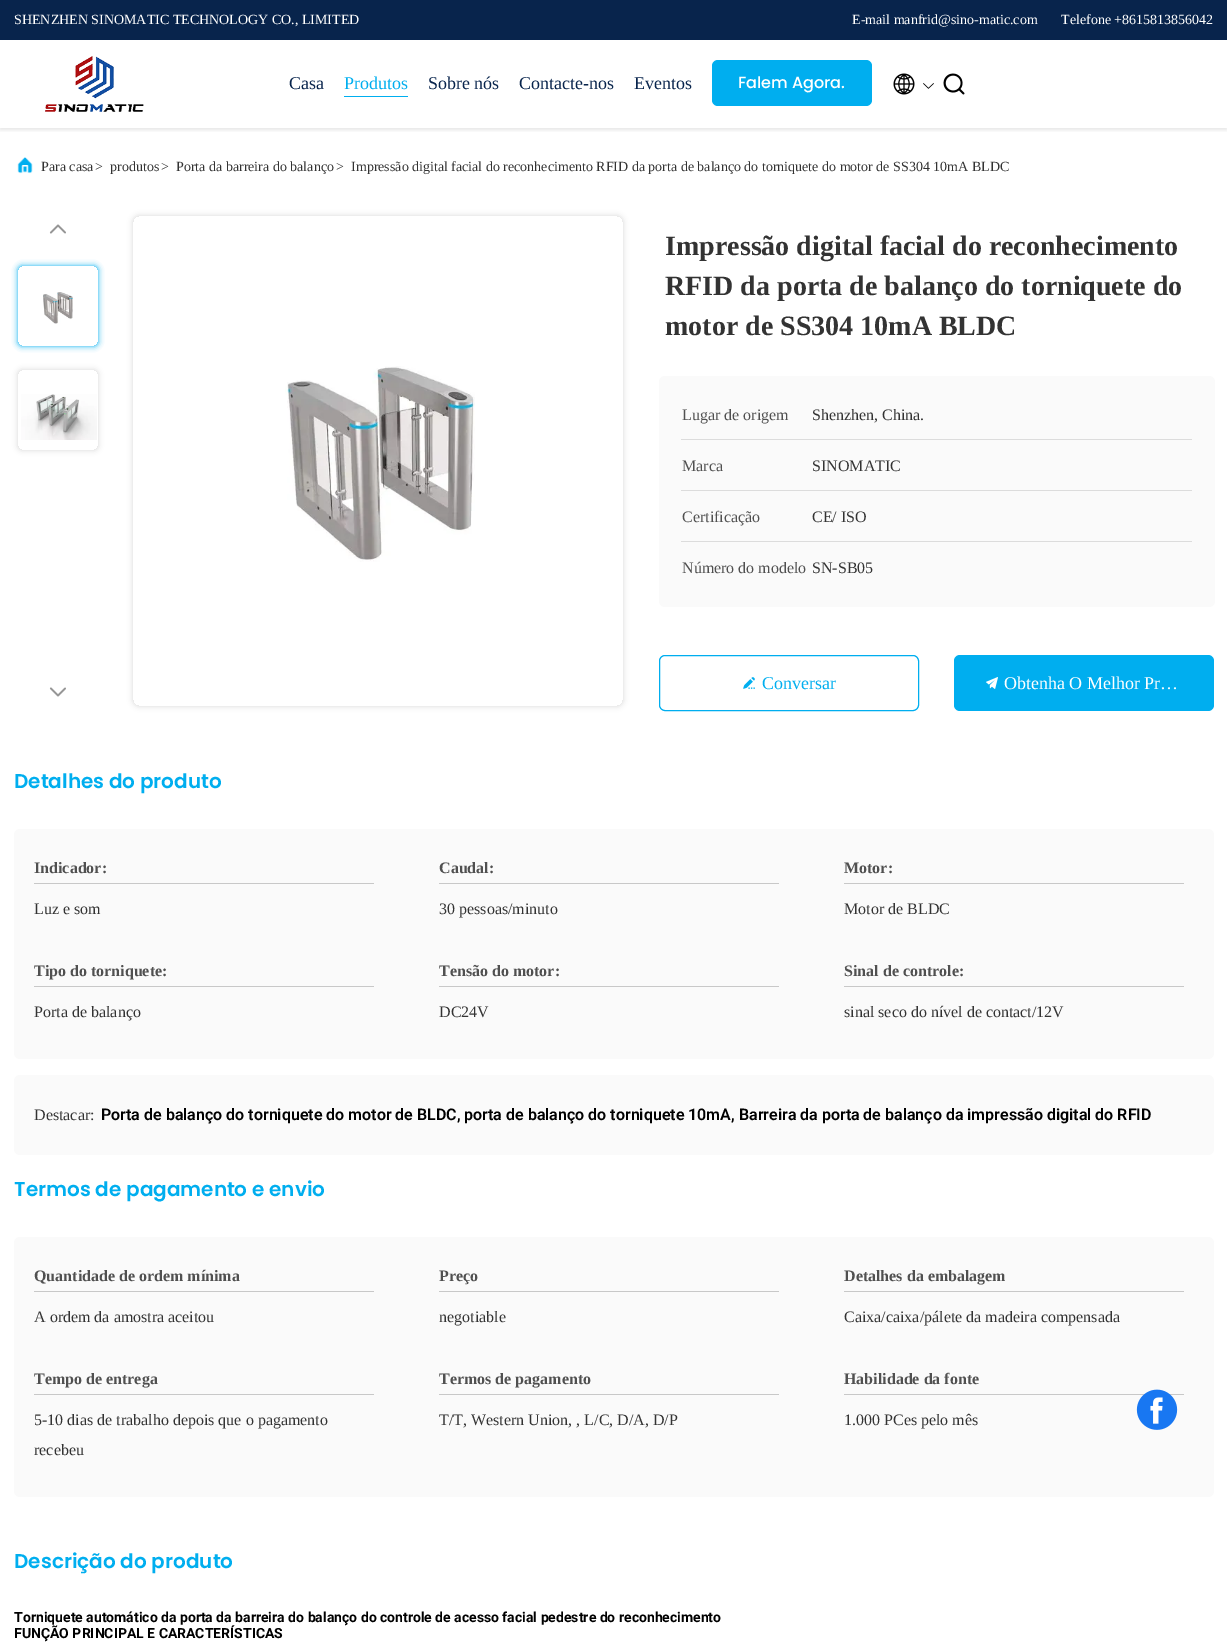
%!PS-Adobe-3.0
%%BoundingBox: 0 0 1227 1643
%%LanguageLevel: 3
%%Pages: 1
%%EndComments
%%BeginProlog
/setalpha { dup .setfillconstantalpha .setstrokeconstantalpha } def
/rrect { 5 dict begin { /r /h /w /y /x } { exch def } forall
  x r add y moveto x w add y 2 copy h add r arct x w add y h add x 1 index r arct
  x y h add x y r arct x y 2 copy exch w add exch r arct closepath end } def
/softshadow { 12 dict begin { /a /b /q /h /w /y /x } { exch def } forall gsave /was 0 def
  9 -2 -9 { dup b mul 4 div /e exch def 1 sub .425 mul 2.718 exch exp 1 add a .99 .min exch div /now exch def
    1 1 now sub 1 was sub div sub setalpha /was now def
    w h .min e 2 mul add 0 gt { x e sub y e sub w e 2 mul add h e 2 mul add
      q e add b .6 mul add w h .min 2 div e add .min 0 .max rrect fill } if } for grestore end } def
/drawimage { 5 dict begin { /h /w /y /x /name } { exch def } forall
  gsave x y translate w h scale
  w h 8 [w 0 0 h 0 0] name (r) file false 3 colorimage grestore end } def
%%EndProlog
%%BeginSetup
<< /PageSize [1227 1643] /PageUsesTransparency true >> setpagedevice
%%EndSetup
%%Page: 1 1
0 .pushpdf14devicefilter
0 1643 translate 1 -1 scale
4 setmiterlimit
1 setgray
0 0 1227 1643 rectfill
0.031 0.141 0.298 setrgbcolor
0 0 1227 40 rectfill
gsave
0 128 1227 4 rectclip
0 setgray
0 42 1227 88 0 2 0.1 softshadow
grestore
(images/1.raw) 45 56 99 56 drawimage
0 0.682 0.937 setrgbcolor
344 96 64 1 rectfill
712 60 160 46 6 rrect fill
(images/2.raw) 893 73 22 22 drawimage
(images/3.raw) 923 83 11 6 drawimage
(images/4.raw) 943 73 22 22 drawimage
(images/5.raw) 17 157 16 17 drawimage
(images/6.raw) 49 224 17 10 drawimage
gsave
newpath 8 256 moveto 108 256 lineto 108 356 lineto 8 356 lineto closepath 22 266 moveto 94 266 lineto 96 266 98 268 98 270 curveto 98 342 lineto 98 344 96 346 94 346 curveto 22 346 lineto 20 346 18 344 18 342 curveto 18 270 lineto 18 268 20 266 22 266 curveto closepath eoclip newpath
18 266 80 80 4 3 1 softshadow
grestore
(images/7.raw) 43 292 30 32 drawimage
gsave
newpath 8 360 moveto 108 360 lineto 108 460 lineto 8 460 lineto closepath 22 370 moveto 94 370 lineto 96 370 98 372 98 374 curveto 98 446 lineto 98 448 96 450 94 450 curveto 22 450 lineto 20 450 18 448 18 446 curveto 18 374 lineto 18 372 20 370 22 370 curveto closepath eoclip newpath
0 setgray
18 370 80 80 4 3 0.15 softshadow
grestore
(images/8.raw) 21 394 76 46 drawimage
(images/9.raw) 49 687 17 10 drawimage
gsave
newpath 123 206 moveto 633 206 lineto 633 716 lineto 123 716 lineto closepath 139 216 moveto 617 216 lineto 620.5 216 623 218.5 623 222 curveto 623 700 lineto 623 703.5 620.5 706 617 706 curveto 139 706 lineto 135.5 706 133 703.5 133 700 curveto 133 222 lineto 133 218.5 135.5 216 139 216 curveto closepath eoclip newpath
0 setgray
133 216 490 490 6 3 0.15 softshadow
grestore
(images/10.raw) 285 366 190 196 drawimage
0.98 setgray
659 376 556 231 6 rrect fill
0.863 setgray
681 439 511 1 rectfill
681 490 511 1 rectfill
681 541 511 1 rectfill
0 0.682 0.937 setrgbcolor
659.5 655.5 259 55 5.5 rrect stroke
(images/11.raw) 743 677 12 12 drawimage
954 655 260 56 6 rrect fill
(images/12.raw) 986 677 12 12 drawimage
0.98 setgray
14 829 1200 230 6 rrect fill
0.784 setgray
34 883 340 1 rectfill
439 883 340 1 rectfill
844 883 340 1 rectfill
34 986 340 1 rectfill
439 986 340 1 rectfill
844 986 340 1 rectfill
0.98 setgray
14 1075 1200 80 6 rrect fill
14 1237 1200 260 6 rrect fill
0.784 setgray
34 1291 340 1 rectfill
439 1291 340 1 rectfill
844 1291 340 1 rectfill
34 1394 340 1 rectfill
439 1394 340 1 rectfill
844 1394 340 1 rectfill
1 setgray
newpath 1156 1409 15 0 360 arc closepath fill
(images/13.raw) 1136 1389 42 41 drawimage
/LiberationSerif-Regular [14 0 0 -14 0 0] selectfont
14 24 moveto (SHENZHEN SINOMATIC TECHNOLOGY CO., LIMITED) show
852 24 moveto (E-mail manfrid@sino-matic.com) show
1061 24 moveto (Telefone +8615813856042) show
/LiberationSerif-Regular [18 0 0 -18 0 0] selectfont
0.031 0.141 0.298 setrgbcolor
289 89 moveto (Casa) show
0 0.682 0.937 setrgbcolor
344 89 moveto (Produtos) show
0.031 0.141 0.298 setrgbcolor
428 89 moveto (Sobre nós) show
519 89 moveto (Contacte-nos) show
634 89 moveto (Eventos) show
/Poppins-Medium [16 0 0 -16 0 0] selectfont
1 setgray
738 88 moveto (Falem Agora.) show
/LiberationSerif-Regular [14 0 0 -14 0 0] selectfont
0.2 setgray
41 171 moveto (Para casa) show
95 171 moveto (>) show
110 171 moveto (produtos) show
161 171 moveto (>) show
176 171 moveto (Porta da barreira do balanço) show
336 171 moveto (>) show
351 171 moveto (Impressão digital facial do reconhecimento RFID da porta de balanço do torniquete do motor de SS304 10mA BLDC) show
/LiberationSerif-Bold [28 0 0 -28 0 0] selectfont
665 255 moveto (Impressão digital facial do reconhecimento) show
665 295 moveto (RFID da porta de balanço do torniquete do) show
665 335 moveto (motor de SS304 10mA BLDC) show
/LiberationSerif-Regular [16 0 0 -16 0 0] selectfont
0.314 setgray
682 420 moveto (Lugar de origem) show
0.2 setgray
812 420 moveto (Shenzhen, China.) show
0.314 setgray
682 471 moveto (Marca) show
0.2 setgray
812 471 moveto (SINOMATIC) show
0.314 setgray
682 522 moveto (Certificação) show
0.2 setgray
812 522 moveto (CE/ ISO) show
0.314 setgray
682 573 moveto (Número do modelo) show
0.2 setgray
812 573 moveto (SN-SB05) show
/LiberationSerif-Regular [18 0 0 -18 0 0] selectfont
0 0.682 0.937 setrgbcolor
762 689 moveto (Conversar) show
1 setgray
1004 689 moveto (Obtenha O Melhor Pr…) show
/Poppins-SemiBold [20 0 0 -20 0 0] selectfont
0 0.682 0.937 setrgbcolor
14 788 moveto (Detalhes do produto) show
/LiberationSerif-Bold [16 0 0 -16 0 0] selectfont
0.314 setgray
34 873 moveto (Indicador:) show
/LiberationSerif-Regular [16 0 0 -16 0 0] selectfont
0.2 setgray
34 914 moveto (Luz e som) show
/LiberationSerif-Bold [16 0 0 -16 0 0] selectfont
0.314 setgray
439 873 moveto (Caudal:) show
/LiberationSerif-Regular [16 0 0 -16 0 0] selectfont
0.2 setgray
439 914 moveto (30 pessoas/minuto) show
/LiberationSerif-Bold [16 0 0 -16 0 0] selectfont
0.314 setgray
844 873 moveto (Motor:) show
/LiberationSerif-Regular [16 0 0 -16 0 0] selectfont
0.2 setgray
844 914 moveto (Motor de BLDC) show
gsave
34 956 340 30 rectclip
/LiberationSerif-Bold [16 0 0 -16 0 0] selectfont
0.314 setgray
34 976 moveto (Tipo do torniquete:) show
grestore
34 1017 moveto (Porta de balanço) show
gsave
439 956 340 30 rectclip
/LiberationSerif-Bold [16 0 0 -16 0 0] selectfont
0.314 setgray
439 976 moveto (Tensão do motor:) show
grestore
439 1017 moveto (DC24V) show
/LiberationSerif-Bold [16 0 0 -16 0 0] selectfont
0.314 setgray
844 976 moveto (Sinal de controle:) show
/LiberationSerif-Regular [16 0 0 -16 0 0] selectfont
0.2 setgray
844 1017 moveto (sinal seco do nível de contact/12V) show
34 1120 moveto (Destacar:) show
/Roboto-SemiBold [16 0 0 -16 0 0] selectfont
0 setgray
101 1120 moveto (Porta de balanço do torniquete do motor de BLDC, porta de balanço do torniquete 10mA, Barreira da porta de balanço da impressão digital do RFID) show
/Poppins-SemiBold [20 0 0 -20 0 0] selectfont
0 0.682 0.937 setrgbcolor
14 1196 moveto (Termos de pagamento e envio) show
/LiberationSerif-Bold [16 0 0 -16 0 0] selectfont
0.314 setgray
34 1281 moveto (Quantidade de ordem mínima) show
/LiberationSerif-Regular [16 0 0 -16 0 0] selectfont
0.2 setgray
34 1322 moveto (A ordem da amostra aceitou) show
/LiberationSerif-Bold [16 0 0 -16 0 0] selectfont
0.314 setgray
439 1281 moveto (Preço) show
/LiberationSerif-Regular [16 0 0 -16 0 0] selectfont
0.2 setgray
439 1322 moveto (negotiable) show
/LiberationSerif-Bold [16 0 0 -16 0 0] selectfont
0.314 setgray
844 1281 moveto (Detalhes da embalagem) show
/LiberationSerif-Regular [16 0 0 -16 0 0] selectfont
0.2 setgray
844 1322 moveto (Caixa/caixa/pálete da madeira compensada) show
gsave
34 1364 340 30 rectclip
/LiberationSerif-Bold [16 0 0 -16 0 0] selectfont
0.314 setgray
34 1384 moveto (Tempo de entrega) show
grestore
34 1425 moveto (5-10 dias de trabalho depois que o pagamento) show
34 1455 moveto (recebeu) show
gsave
439 1364 340 30 rectclip
/LiberationSerif-Bold [16 0 0 -16 0 0] selectfont
0.314 setgray
439 1384 moveto (Termos de pagamento) show
grestore
439 1425 moveto (T/T, Western Union, , L/C, D/A, D/P) show
/LiberationSerif-Bold [16 0 0 -16 0 0] selectfont
0.314 setgray
844 1384 moveto (Habilidade da fonte) show
/LiberationSerif-Regular [16 0 0 -16 0 0] selectfont
0.2 setgray
844 1425 moveto (1.000 PCes pelo mês) show
/Poppins-SemiBold [20 0 0 -20 0 0] selectfont
0 0.682 0.937 setrgbcolor
14 1568 moveto (Descrição do produto) show
/Roboto-Bold [14 0 0 -14 0 0] selectfont
0 setgray
14 1622 moveto (Torniquete automático da porta da barreira do balanço do controle de acesso facial pedestre do reconhecimento) show
14 1638 moveto (FUNÇÃO PRINCIPAL E CARACTERÍSTICAS) show
.poppdf14devicefilter showpage
%%EOF
